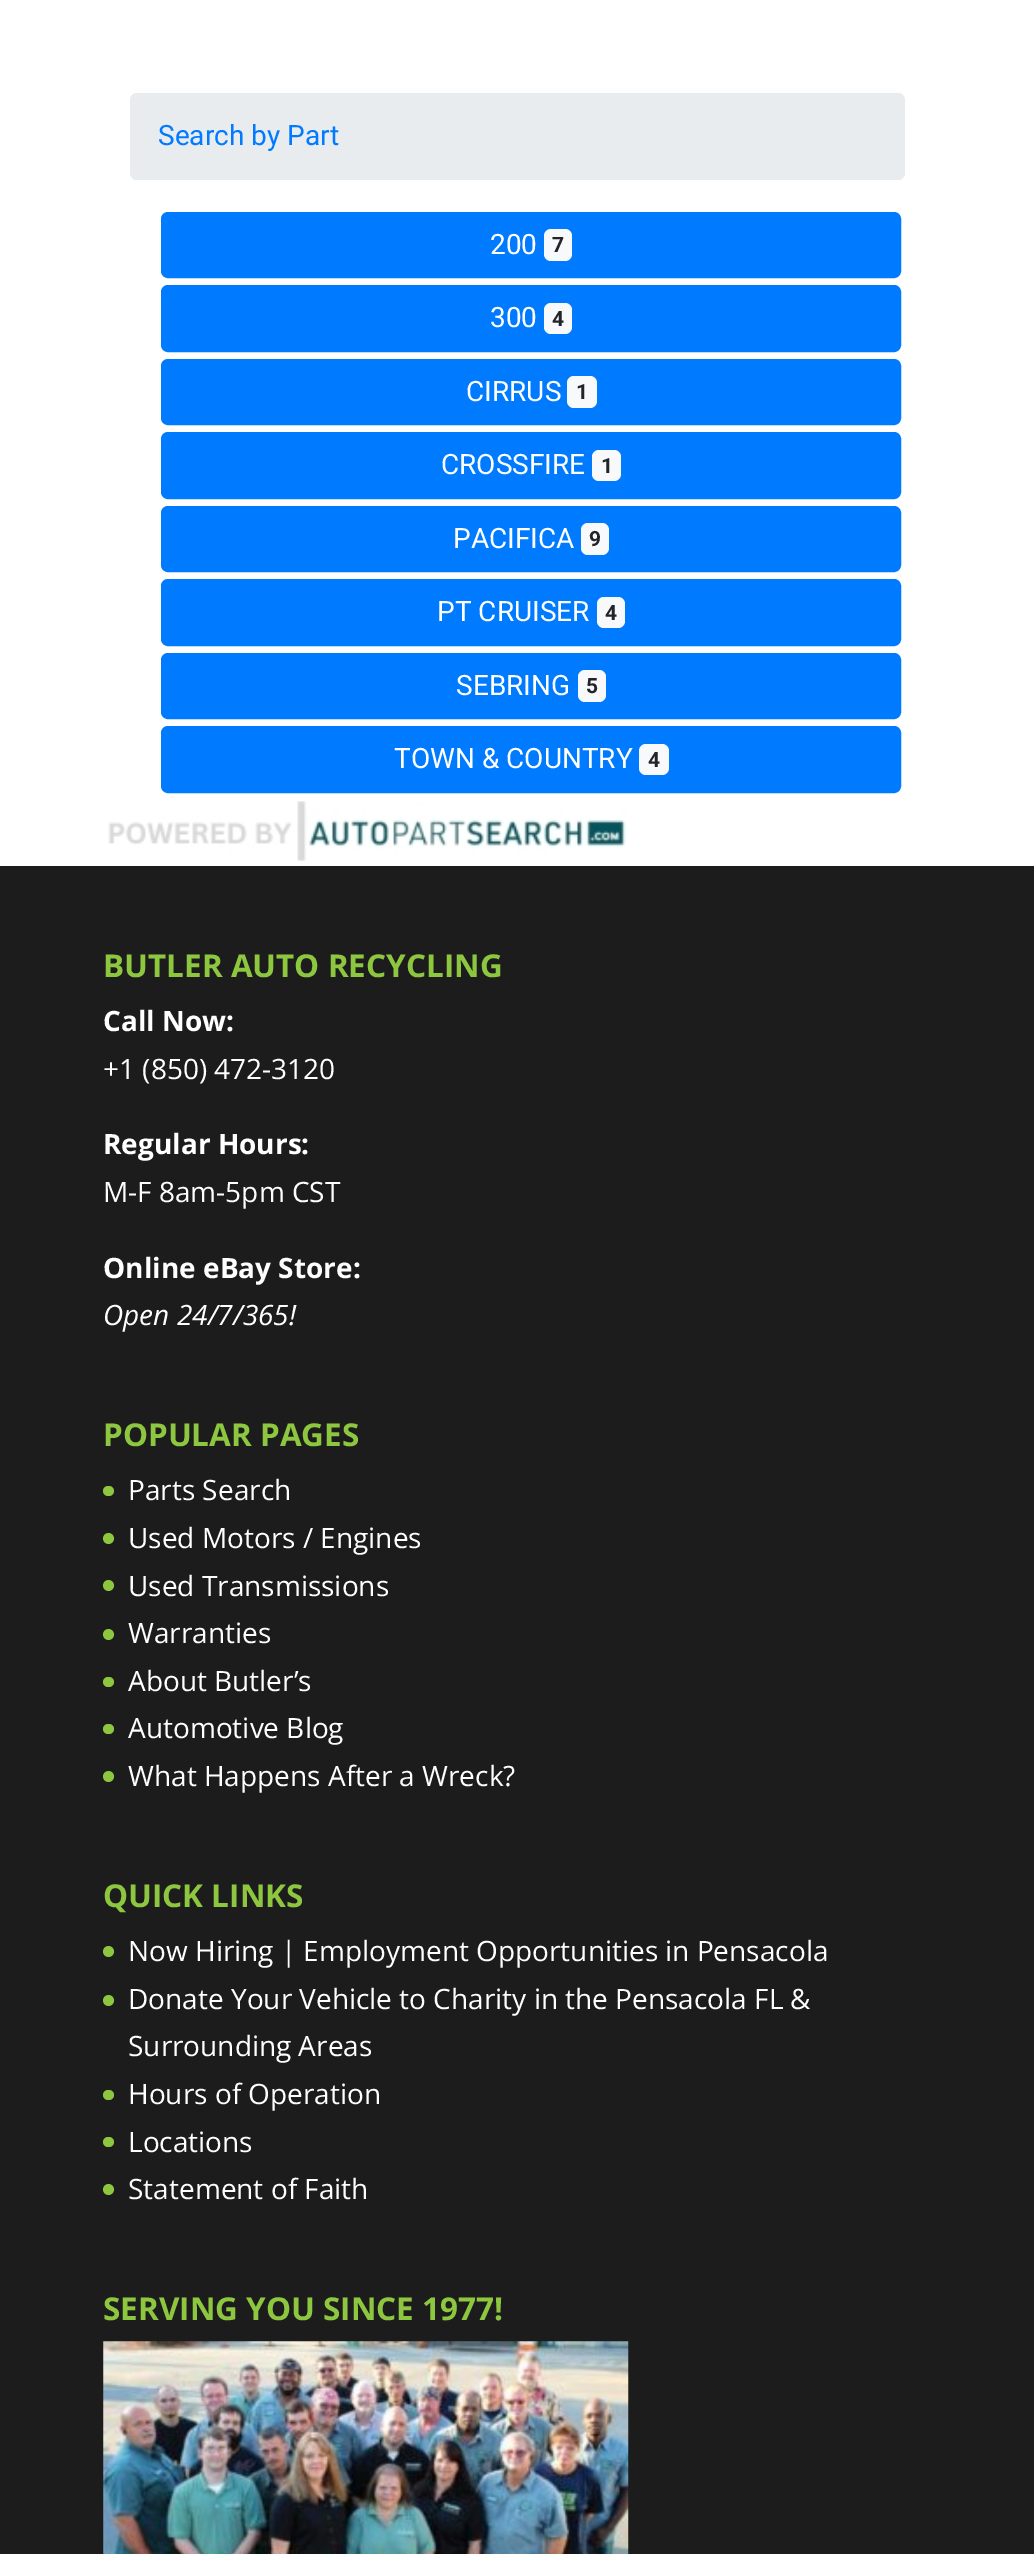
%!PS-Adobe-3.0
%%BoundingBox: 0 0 1034 2554
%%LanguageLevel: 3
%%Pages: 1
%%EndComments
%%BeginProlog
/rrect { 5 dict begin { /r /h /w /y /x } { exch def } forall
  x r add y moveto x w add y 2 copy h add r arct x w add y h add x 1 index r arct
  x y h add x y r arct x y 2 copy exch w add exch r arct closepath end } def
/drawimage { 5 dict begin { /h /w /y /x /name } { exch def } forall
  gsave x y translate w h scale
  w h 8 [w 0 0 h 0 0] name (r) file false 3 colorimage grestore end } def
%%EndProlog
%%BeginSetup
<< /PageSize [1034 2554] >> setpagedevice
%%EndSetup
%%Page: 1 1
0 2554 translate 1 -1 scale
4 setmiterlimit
1 setgray
0 0 1034 2554 rectfill
0.914 0.925 0.937 setrgbcolor
130 93 775 87 7 rrect fill
0 0.482 1 setrgbcolor
162 213 738 64 6 rrect gsave fill grestore
2 setlinewidth
stroke
0.973 0.976 0.98 setrgbcolor
544 229 28 32 7 rrect fill
0 0.482 1 setrgbcolor
162 286 738 65 6 rrect gsave fill grestore
stroke
0.973 0.976 0.98 setrgbcolor
544 303 28 31 7 rrect fill
0 0.482 1 setrgbcolor
162 360 738 64 6 rrect gsave fill grestore
stroke
0.973 0.976 0.98 setrgbcolor
567 376 30 32 7 rrect fill
0 0.482 1 setrgbcolor
162 433 738 65 6 rrect gsave fill grestore
stroke
0.973 0.976 0.98 setrgbcolor
592 450 29 31 7 rrect fill
0 0.482 1 setrgbcolor
162 507 738 64 6 rrect gsave fill grestore
stroke
0.973 0.976 0.98 setrgbcolor
581 523 28 32 7 rrect fill
0 0.482 1 setrgbcolor
162 580 738 65 6 rrect gsave fill grestore
stroke
0.973 0.976 0.98 setrgbcolor
597 597 28 31 7 rrect fill
0 0.482 1 setrgbcolor
162 654 738 64 6 rrect gsave fill grestore
stroke
0.973 0.976 0.98 setrgbcolor
578 670 28 32 7 rrect fill
0 0.482 1 setrgbcolor
162 727 738 65 6 rrect gsave fill grestore
stroke
0.973 0.976 0.98 setrgbcolor
639 744 30 31 7 rrect fill
(images/1.raw) 108 801 519 60 drawimage
0.11 setgray
0 866 1034 1688 rectfill
0.553 0.776 0.247 setrgbcolor
103 1486 11 10 5 rrect fill
newpath 108.5 1538.5 5.5 0 360 arc closepath fill
newpath 108.5 1585.5 5.5 0 360 arc closepath fill
newpath 108.5 1634.5 5.5 0 360 arc closepath fill
103 1677 11 10 5 rrect fill
103 1724 11 10 5 rrect fill
newpath 108.5 1776.5 5.5 0 360 arc closepath fill
newpath 108.5 1951.5 5.5 0 360 arc closepath fill
newpath 108.5 2000.5 5.5 0 360 arc closepath fill
103 2090 11 10 5 rrect fill
103 2137 11 10 5 rrect fill
newpath 108.5 2189.5 5.5 0 360 arc closepath fill
(images/2.raw) 103 2341 526 213 drawimage
/Roboto-Regular [28 0 0 -28 0 0] selectfont
0 0.482 1 setrgbcolor
158 145 moveto (Search by Part) show
1 setgray
490 254 moveto (200) show
/Roboto-Bold [21 0 0 -21 0 0] selectfont
0.129 0.145 0.161 setrgbcolor
552 252 moveto (7) show
/Roboto-Regular [28 0 0 -28 0 0] selectfont
1 setgray
490 327 moveto (300) show
/Roboto-Bold [21 0 0 -21 0 0] selectfont
0.129 0.145 0.161 setrgbcolor
552 326 moveto (4) show
/Roboto-Regular [28 0 0 -28 0 0] selectfont
1 setgray
466 401 moveto (CIRRUS) show
/Roboto-Bold [21 0 0 -21 0 0] selectfont
0.129 0.145 0.161 setrgbcolor
576 399 moveto (1) show
/Roboto-Regular [28 0 0 -28 0 0] selectfont
1 setgray
441 474 moveto (CROSSFIRE) show
/Roboto-Bold [21 0 0 -21 0 0] selectfont
0.129 0.145 0.161 setrgbcolor
601 473 moveto (1) show
/Roboto-Regular [28 0 0 -28 0 0] selectfont
1 setgray
453 548 moveto (PACIFICA) show
/Roboto-Bold [21 0 0 -21 0 0] selectfont
0.129 0.145 0.161 setrgbcolor
589 546 moveto (9) show
/Roboto-Regular [28 0 0 -28 0 0] selectfont
1 setgray
437 621 moveto (PT CRUISER) show
/Roboto-Bold [21 0 0 -21 0 0] selectfont
0.129 0.145 0.161 setrgbcolor
605 620 moveto (4) show
/Roboto-Regular [28 0 0 -28 0 0] selectfont
1 setgray
456 695 moveto (SEBRING) show
/Roboto-Bold [21 0 0 -21 0 0] selectfont
0.129 0.145 0.161 setrgbcolor
586 693 moveto (5) show
/Roboto-Regular [28 0 0 -28 0 0] selectfont
1 setgray
394 768 moveto (TOWN & COUNTRY) show
/Roboto-Bold [21 0 0 -21 0 0] selectfont
0.129 0.145 0.161 setrgbcolor
648 767 moveto (4) show
/OpenSans-Bold [31.5 0 0 -31.5 0 0] selectfont
0.553 0.776 0.247 setrgbcolor
103 977 moveto (BUTLER AUTO RECYCLING) show
/OpenSans-Bold [28 0 0 -28 0 0] selectfont
1 setgray
103 1031 moveto (Call Now:) show
/OpenSans-Regular [28 0 0 -28 0 0] selectfont
103 1079 moveto (+1 \(850\) 472-3120) show
/OpenSans-Bold [28 0 0 -28 0 0] selectfont
103 1154 moveto (Regular Hours:) show
/OpenSans-Regular [28 0 0 -28 0 0] selectfont
103 1202 moveto (M-F 8am-5pm CST) show
/OpenSans-Bold [28 0 0 -28 0 0] selectfont
103 1278 moveto (Online eBay Store:) show
/OpenSans-Italic [28 0 0 -28 0 0] selectfont
103 1325 moveto (Open 24/7/365!) show
/OpenSans-Bold [31.5 0 0 -31.5 0 0] selectfont
0.553 0.776 0.247 setrgbcolor
103 1446 moveto (POPULAR PAGES) show
/OpenSans-Regular [28 0 0 -28 0 0] selectfont
1 setgray
128 1500 moveto (Parts Search) show
128 1548 moveto (Used Motors / Engines) show
128 1596 moveto (Used Transmissions) show
128 1643 moveto (Warranties) show
128 1691 moveto (About Butler’s) show
128 1738 moveto (Automotive Blog) show
128 1786 moveto (What Happens After a Wreck?) show
/OpenSans-Bold [31.5 0 0 -31.5 0 0] selectfont
0.553 0.776 0.247 setrgbcolor
103 1907 moveto (QUICK LINKS) show
/OpenSans-Regular [28 0 0 -28 0 0] selectfont
1 setgray
128 1961 moveto (Now Hiring | Employment Opportunities in Pensacola) show
128 2009 moveto (Donate Your Vehicle to Charity in the Pensacola FL &) show
128 2056 moveto (Surrounding Areas) show
128 2104 moveto (Hours of Operation) show
128 2152 moveto (Locations) show
128 2199 moveto (Statement of Faith) show
/OpenSans-Bold [31.5 0 0 -31.5 0 0] selectfont
0.553 0.776 0.247 setrgbcolor
103 2320 moveto (SERVING YOU SINCE 1977!) show
showpage
%%EOF
